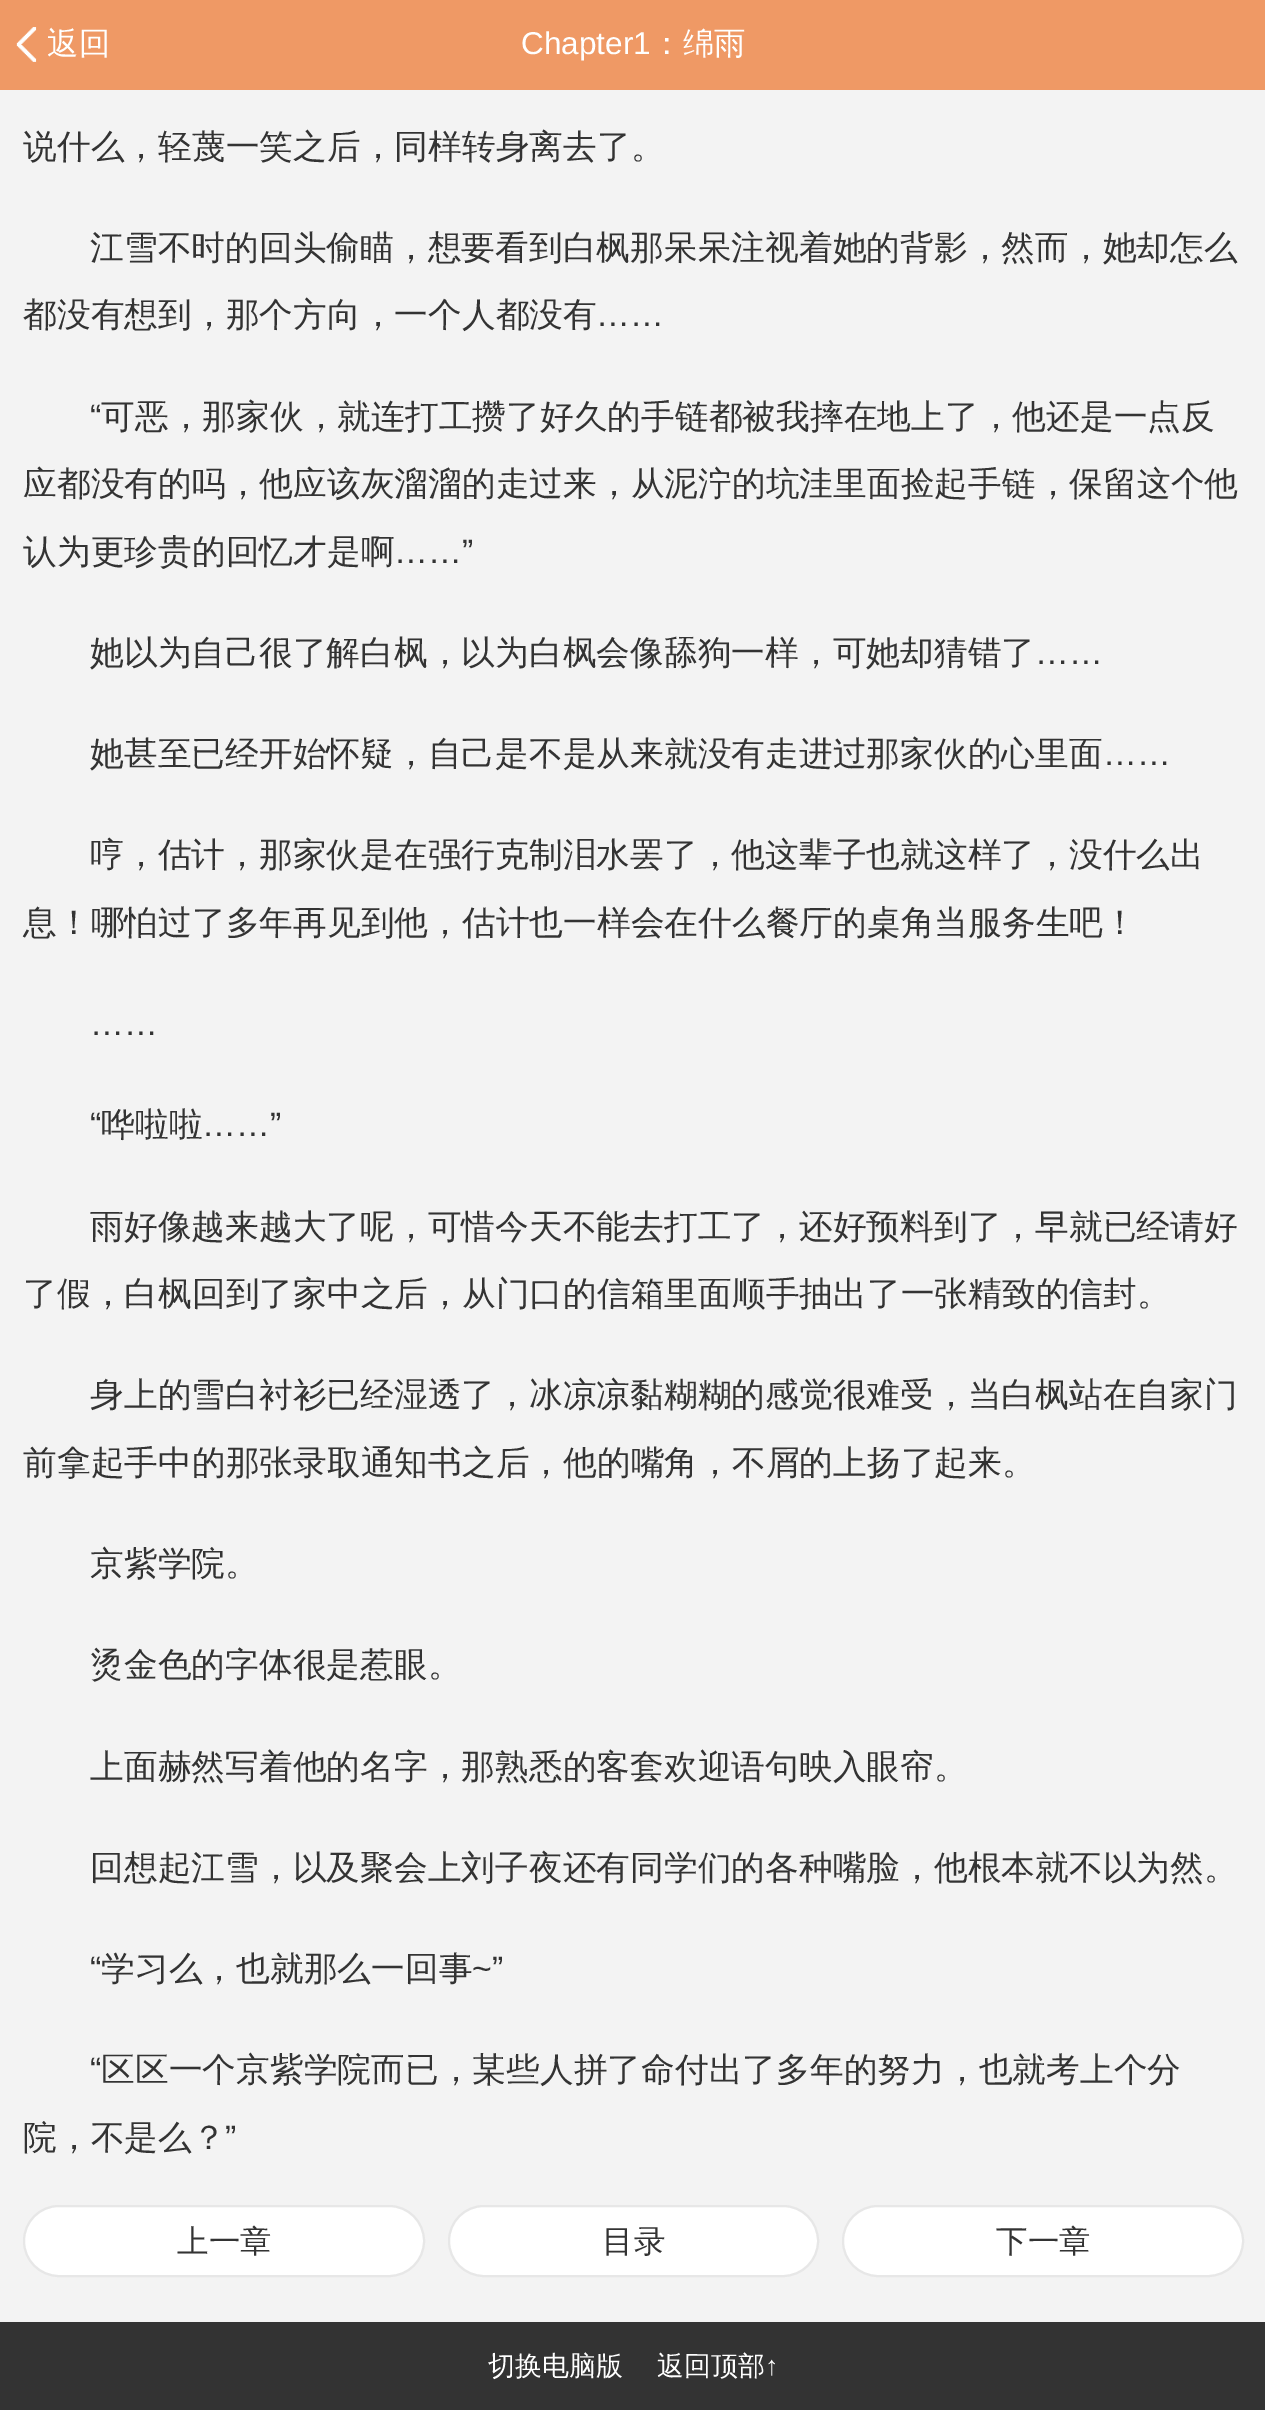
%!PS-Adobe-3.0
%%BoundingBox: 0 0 1265 2410
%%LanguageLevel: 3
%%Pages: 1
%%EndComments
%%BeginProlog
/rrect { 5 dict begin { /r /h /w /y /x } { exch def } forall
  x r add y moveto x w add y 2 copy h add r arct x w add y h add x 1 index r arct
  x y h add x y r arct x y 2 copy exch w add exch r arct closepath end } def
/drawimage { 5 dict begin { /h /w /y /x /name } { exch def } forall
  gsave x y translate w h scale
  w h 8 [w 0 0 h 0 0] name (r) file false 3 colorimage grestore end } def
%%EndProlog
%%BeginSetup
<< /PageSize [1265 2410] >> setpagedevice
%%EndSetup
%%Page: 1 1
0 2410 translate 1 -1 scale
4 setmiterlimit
0.953 setgray
0 0 1265 2410 rectfill
0.937 0.6 0.396 setrgbcolor
0 0 1265 90 rectfill
(images/1.raw) 16 27 21 35 drawimage
1 setgray
24 2206 400 70 35 rrect gsave fill grestore
0.906 setgray
2 setlinewidth
stroke
1 setgray
449 2206 369 70 35 rrect gsave fill grestore
0.906 setgray
stroke
1 setgray
843 2206 400 70 35 rrect gsave fill grestore
0.906 setgray
stroke
0.2 setgray
0 2322 1265 88 rectfill
/WenQuanYiZenHei-Medium [31.5 0 0 -31.5 0 0] selectfont
1 setgray
47 54 moveto (返回) show
/LiberationSans-Regular [31.5 0 0 -31.5 0 0] selectfont
521 54 moveto (Chapter1) show
/WenQuanYiZenHei-Medium [31.5 0 0 -31.5 0 0] selectfont
651 54 moveto (：绵雨) show
/WenQuanYiZenHei-Medium [33.75 0 0 -33.75 0 0] selectfont
0.2 setgray
23 158 moveto (说什么，轻蔑一笑之后，同样转身离去了。) show
90 259 moveto (江雪不时的回头偷瞄，想要看到白枫那呆呆注视着她的背影，然而，她却怎么) show
23 326 moveto (都没有想到，那个方向，一个人都没有) show
/LiberationSans-Regular [33.75 0 0 -33.75 0 0] selectfont
596 326 moveto (……) show
90 428 moveto (“) show
/WenQuanYiZenHei-Medium [33.75 0 0 -33.75 0 0] selectfont
101 428 moveto (可恶，那家伙，就连打工攒了好久的手链都被我摔在地上了，他还是一点反) show
23 495 moveto (应都没有的吗，他应该灰溜溜的走过来，从泥泞的坑洼里面捡起手链，保留这个他) show
23 563 moveto (认为更珍贵的回忆才是啊) show
/LiberationSans-Regular [33.75 0 0 -33.75 0 0] selectfont
394 563 moveto (……”) show
/WenQuanYiZenHei-Medium [33.75 0 0 -33.75 0 0] selectfont
90 664 moveto (她以为自己很了解白枫，以为白枫会像舔狗一样，可她却猜错了) show
/LiberationSans-Regular [33.75 0 0 -33.75 0 0] selectfont
1035 664 moveto (……) show
/WenQuanYiZenHei-Medium [33.75 0 0 -33.75 0 0] selectfont
90 765 moveto (她甚至已经开始怀疑，自己是不是从来就没有走进过那家伙的心里面) show
/LiberationSans-Regular [33.75 0 0 -33.75 0 0] selectfont
1103 765 moveto (……) show
/WenQuanYiZenHei-Medium [33.75 0 0 -33.75 0 0] selectfont
90 866 moveto (哼，估计，那家伙是在强行克制泪水罢了，他这辈子也就这样了，没什么出) show
23 934 moveto (息！哪怕过了多年再见到他，估计也一样会在什么餐厅的桌角当服务生吧！) show
/LiberationSans-Regular [33.75 0 0 -33.75 0 0] selectfont
90 1035 moveto (……) show
90 1136 moveto (“) show
/WenQuanYiZenHei-Medium [33.75 0 0 -33.75 0 0] selectfont
101 1136 moveto (哗啦啦) show
/LiberationSans-Regular [33.75 0 0 -33.75 0 0] selectfont
202 1136 moveto (……”) show
/WenQuanYiZenHei-Medium [33.75 0 0 -33.75 0 0] selectfont
90 1238 moveto (雨好像越来越大了呢，可惜今天不能去打工了，还好预料到了，早就已经请好) show
23 1305 moveto (了假，白枫回到了家中之后，从门口的信箱里面顺手抽出了一张精致的信封。) show
90 1406 moveto (身上的雪白衬衫已经湿透了，冰凉凉黏糊糊的感觉很难受，当白枫站在自家门) show
23 1474 moveto (前拿起手中的那张录取通知书之后，他的嘴角，不屑的上扬了起来。) show
90 1575 moveto (京紫学院。) show
90 1676 moveto (烫金色的字体很是惹眼。) show
90 1778 moveto (上面赫然写着他的名字，那熟悉的客套欢迎语句映入眼帘。) show
90 1879 moveto (回想起江雪，以及聚会上刘子夜还有同学们的各种嘴脸，他根本就不以为然。) show
/LiberationSans-Regular [33.75 0 0 -33.75 0 0] selectfont
90 1980 moveto (“) show
/WenQuanYiZenHei-Medium [33.75 0 0 -33.75 0 0] selectfont
101 1980 moveto (学习么，也就那么一回事) show
/LiberationSans-Regular [33.75 0 0 -33.75 0 0] selectfont
472 1980 moveto (~”) show
90 2081 moveto (“) show
/WenQuanYiZenHei-Medium [33.75 0 0 -33.75 0 0] selectfont
101 2081 moveto (区区一个京紫学院而已，某些人拼了命付出了多年的努力，也就考上个分) show
23 2149 moveto (院，不是么？) show
/LiberationSans-Regular [33.75 0 0 -33.75 0 0] selectfont
225 2149 moveto (”) show
/WenQuanYiZenHei-Medium [31.5 0 0 -31.5 0 0] selectfont
177 2252 moveto (上一章) show
602 2252 moveto (目录) show
996 2252 moveto (下一章) show
/WenQuanYiZenHei-Medium [27 0 0 -27 0 0] selectfont
1 setgray
488 2375 moveto (切换电脑版) show
657 2375 moveto (返回顶部) show
/LiberationSans-Regular [27 0 0 -27 0 0] selectfont
765 2375 moveto (↑) show
showpage
%%EOF
